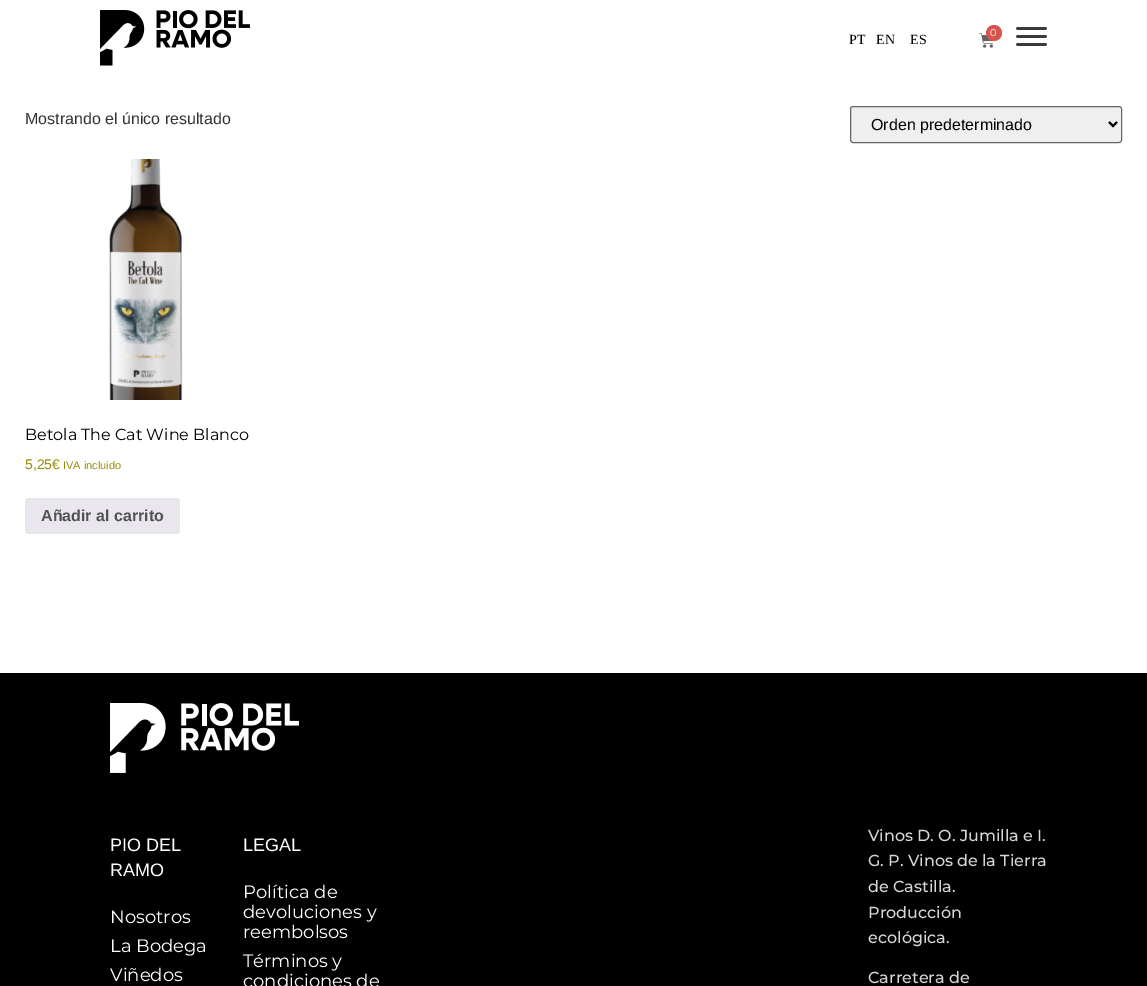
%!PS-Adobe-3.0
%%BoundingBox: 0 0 1147 986
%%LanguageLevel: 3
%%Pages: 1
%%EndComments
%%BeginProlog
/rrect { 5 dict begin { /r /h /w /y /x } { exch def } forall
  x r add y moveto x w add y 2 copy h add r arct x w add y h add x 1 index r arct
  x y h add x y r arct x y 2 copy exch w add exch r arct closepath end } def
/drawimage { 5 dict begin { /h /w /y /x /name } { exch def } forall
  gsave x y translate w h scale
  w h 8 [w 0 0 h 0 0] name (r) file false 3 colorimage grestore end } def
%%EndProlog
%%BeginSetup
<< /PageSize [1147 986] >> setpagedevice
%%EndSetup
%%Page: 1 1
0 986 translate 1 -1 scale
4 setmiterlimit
1 setgray
0 0 1147 986 rectfill
(images/1.raw) 100 10 150 56 drawimage
(images/2.raw) 979 33 15 15 drawimage
0.851 0.325 0.31 setrgbcolor
newpath 994 33 8 0 360 arc closepath fill
(images/3.raw) 1016 27 31 19 drawimage
0.937 setgray
850.5 106.5 271 36 2.5 rrect gsave fill grestore
0.4 setgray
stroke
0 setgray
2 setlinewidth
newpath 1109 122 moveto 1113 126 lineto 1117 122 lineto stroke
(images/4.raw) 109 159 74 241 drawimage
0.914 0.902 0.929 setrgbcolor
25 498 155 36 3 rrect fill
0 setgray
0 673 1147 313 rectfill
(images/5.raw) 110 703 189 70 drawimage
/Montserrat-Regular [10 0 0 -10 0 0] selectfont
1 setgray
990 36 moveto (0) show
/LiberationSerif-Regular [14 0 0 -14 0 0] selectfont
0 setgray
849 44 moveto (PT) show
876 44 moveto (EN) show
910 44 moveto (ES) show
/LiberationSans-Regular [16 0 0 -16 0 0] selectfont
0.2 setgray
25 124 moveto (Mostrando el único resultado) show
0 setgray
871 130 moveto (Orden predeterminado) show
/Montserrat-Regular [16 0 0 -16 0 0] selectfont
25 440 moveto (Betola The Cat Wine Blanco) show
/LiberationSans-Regular [14 0 0 -14 0 0] selectfont
0.584 0.557 0.035 setrgbcolor
25 469 moveto (5,25€) show
/LiberationSans-Regular [11 0 0 -11 0 0] selectfont
63 469 moveto (IVA incluido) show
/LiberationSans-Bold [16 0 0 -16 0 0] selectfont
0.318 setgray
41 521 moveto (Añadir al carrito) show
/LiberationSans-Regular [18 0 0 -18 0 0] selectfont
1 setgray
110 851 moveto (PIO DEL) show
110 876 moveto (RAMO) show
/Montserrat-Regular [18 0 0 -18 0 0] selectfont
110 923 moveto (Nosotros) show
110 952 moveto (La Bodega) show
110 981 moveto (Viñedos) show
/LiberationSans-Regular [18 0 0 -18 0 0] selectfont
243 851 moveto (LEGAL) show
/Montserrat-Regular [18 0 0 -18 0 0] selectfont
243 898 moveto (Política de) show
243 918 moveto (devoluciones y) show
243 938 moveto (reembolsos) show
243 967 moveto (Términos y) show
243 987 moveto (condiciones de) show
/Montserrat-Medium [16 0 0 -16 0 0] selectfont
0.843 setgray
868 841 moveto (Vinos D. O. Jumilla e I.) show
868 866 moveto (G. P. Vinos de la Tierra) show
868 892 moveto (de Castilla.) show
868 918 moveto (Producción) show
868 943 moveto (ecológica.) show
868 983 moveto (Carretera de) show
showpage
%%EOF
